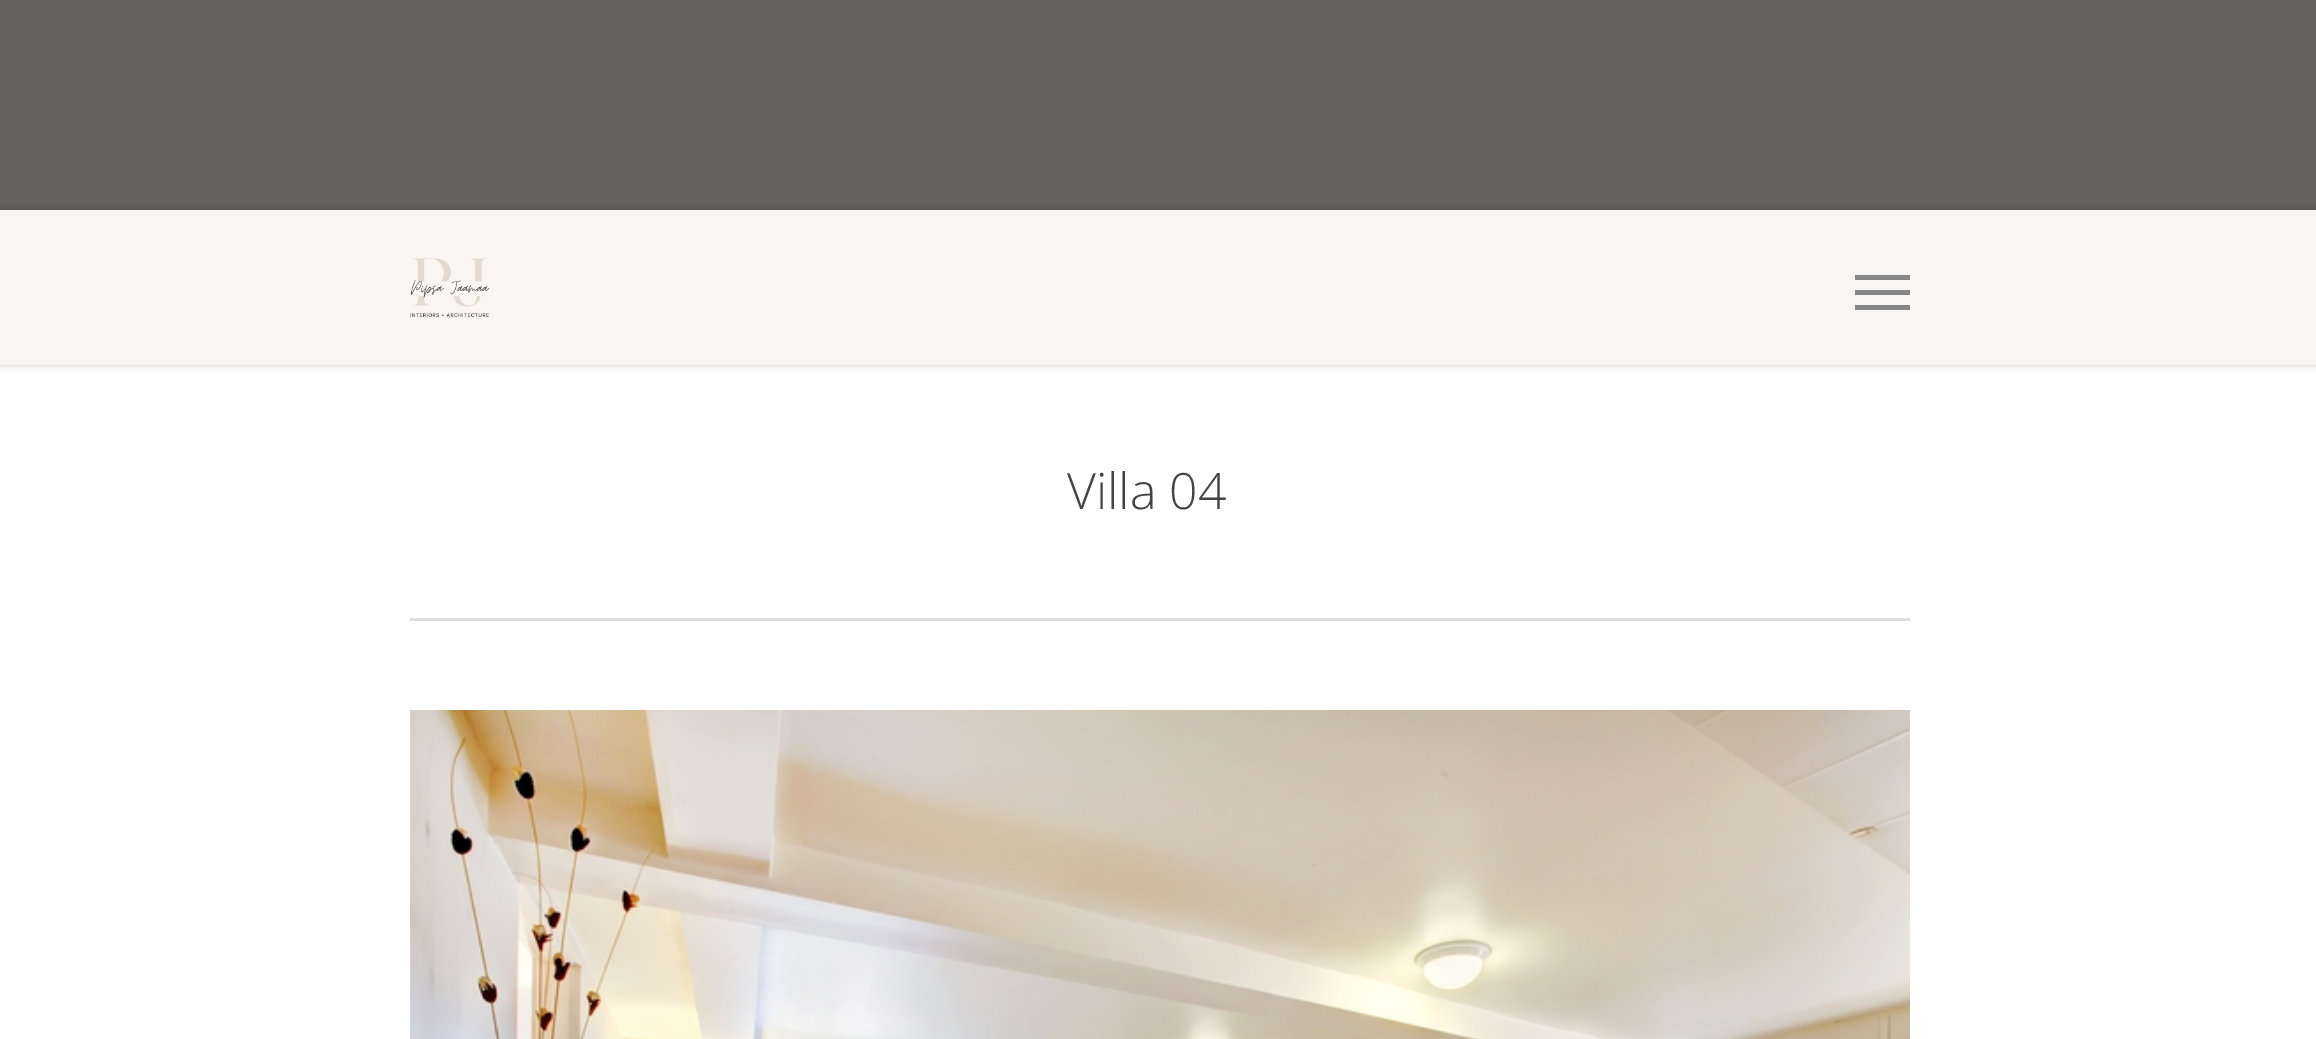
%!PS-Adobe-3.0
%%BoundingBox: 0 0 2316 1039
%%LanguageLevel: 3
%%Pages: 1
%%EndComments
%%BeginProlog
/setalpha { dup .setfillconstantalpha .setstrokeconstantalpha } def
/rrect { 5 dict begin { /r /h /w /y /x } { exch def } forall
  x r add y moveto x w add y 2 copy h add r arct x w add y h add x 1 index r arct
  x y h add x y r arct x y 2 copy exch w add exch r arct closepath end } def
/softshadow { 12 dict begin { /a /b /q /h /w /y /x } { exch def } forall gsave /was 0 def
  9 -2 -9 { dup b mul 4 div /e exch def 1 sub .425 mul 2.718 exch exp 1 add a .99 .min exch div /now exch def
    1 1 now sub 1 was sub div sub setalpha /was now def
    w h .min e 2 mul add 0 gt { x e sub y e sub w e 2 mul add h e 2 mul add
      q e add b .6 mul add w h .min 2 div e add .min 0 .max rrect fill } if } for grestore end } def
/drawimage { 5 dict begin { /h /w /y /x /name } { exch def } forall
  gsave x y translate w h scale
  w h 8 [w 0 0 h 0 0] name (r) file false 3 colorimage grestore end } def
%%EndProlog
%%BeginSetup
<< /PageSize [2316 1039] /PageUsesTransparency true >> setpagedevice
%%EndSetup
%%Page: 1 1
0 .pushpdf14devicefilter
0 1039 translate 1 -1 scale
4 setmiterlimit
0.388 0.384 0.38 setrgbcolor
0 0 2316 1039 rectfill
1 setgray
0 365 2316 674 rectfill
0 setgray
0 210 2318 155 0 4 0.22 softshadow
0.976 0.961 0.949 setrgbcolor
0 210 2316 155 rectfill
(images/1.raw) 410 258 80 60 drawimage
0.533 setgray
1855 275 55 5 rectfill
1855 305 55 5 rectfill
1855 290 55 5 rectfill
0.867 setgray
410 618 1500 3 rectfill
(images/2.raw) 410 710 1500 329 drawimage
/OpenSans-Light [50 0 0 -50 0 0] selectfont
0.267 setgray
1067 509 moveto (Villa 04) show
.poppdf14devicefilter showpage
%%EOF
